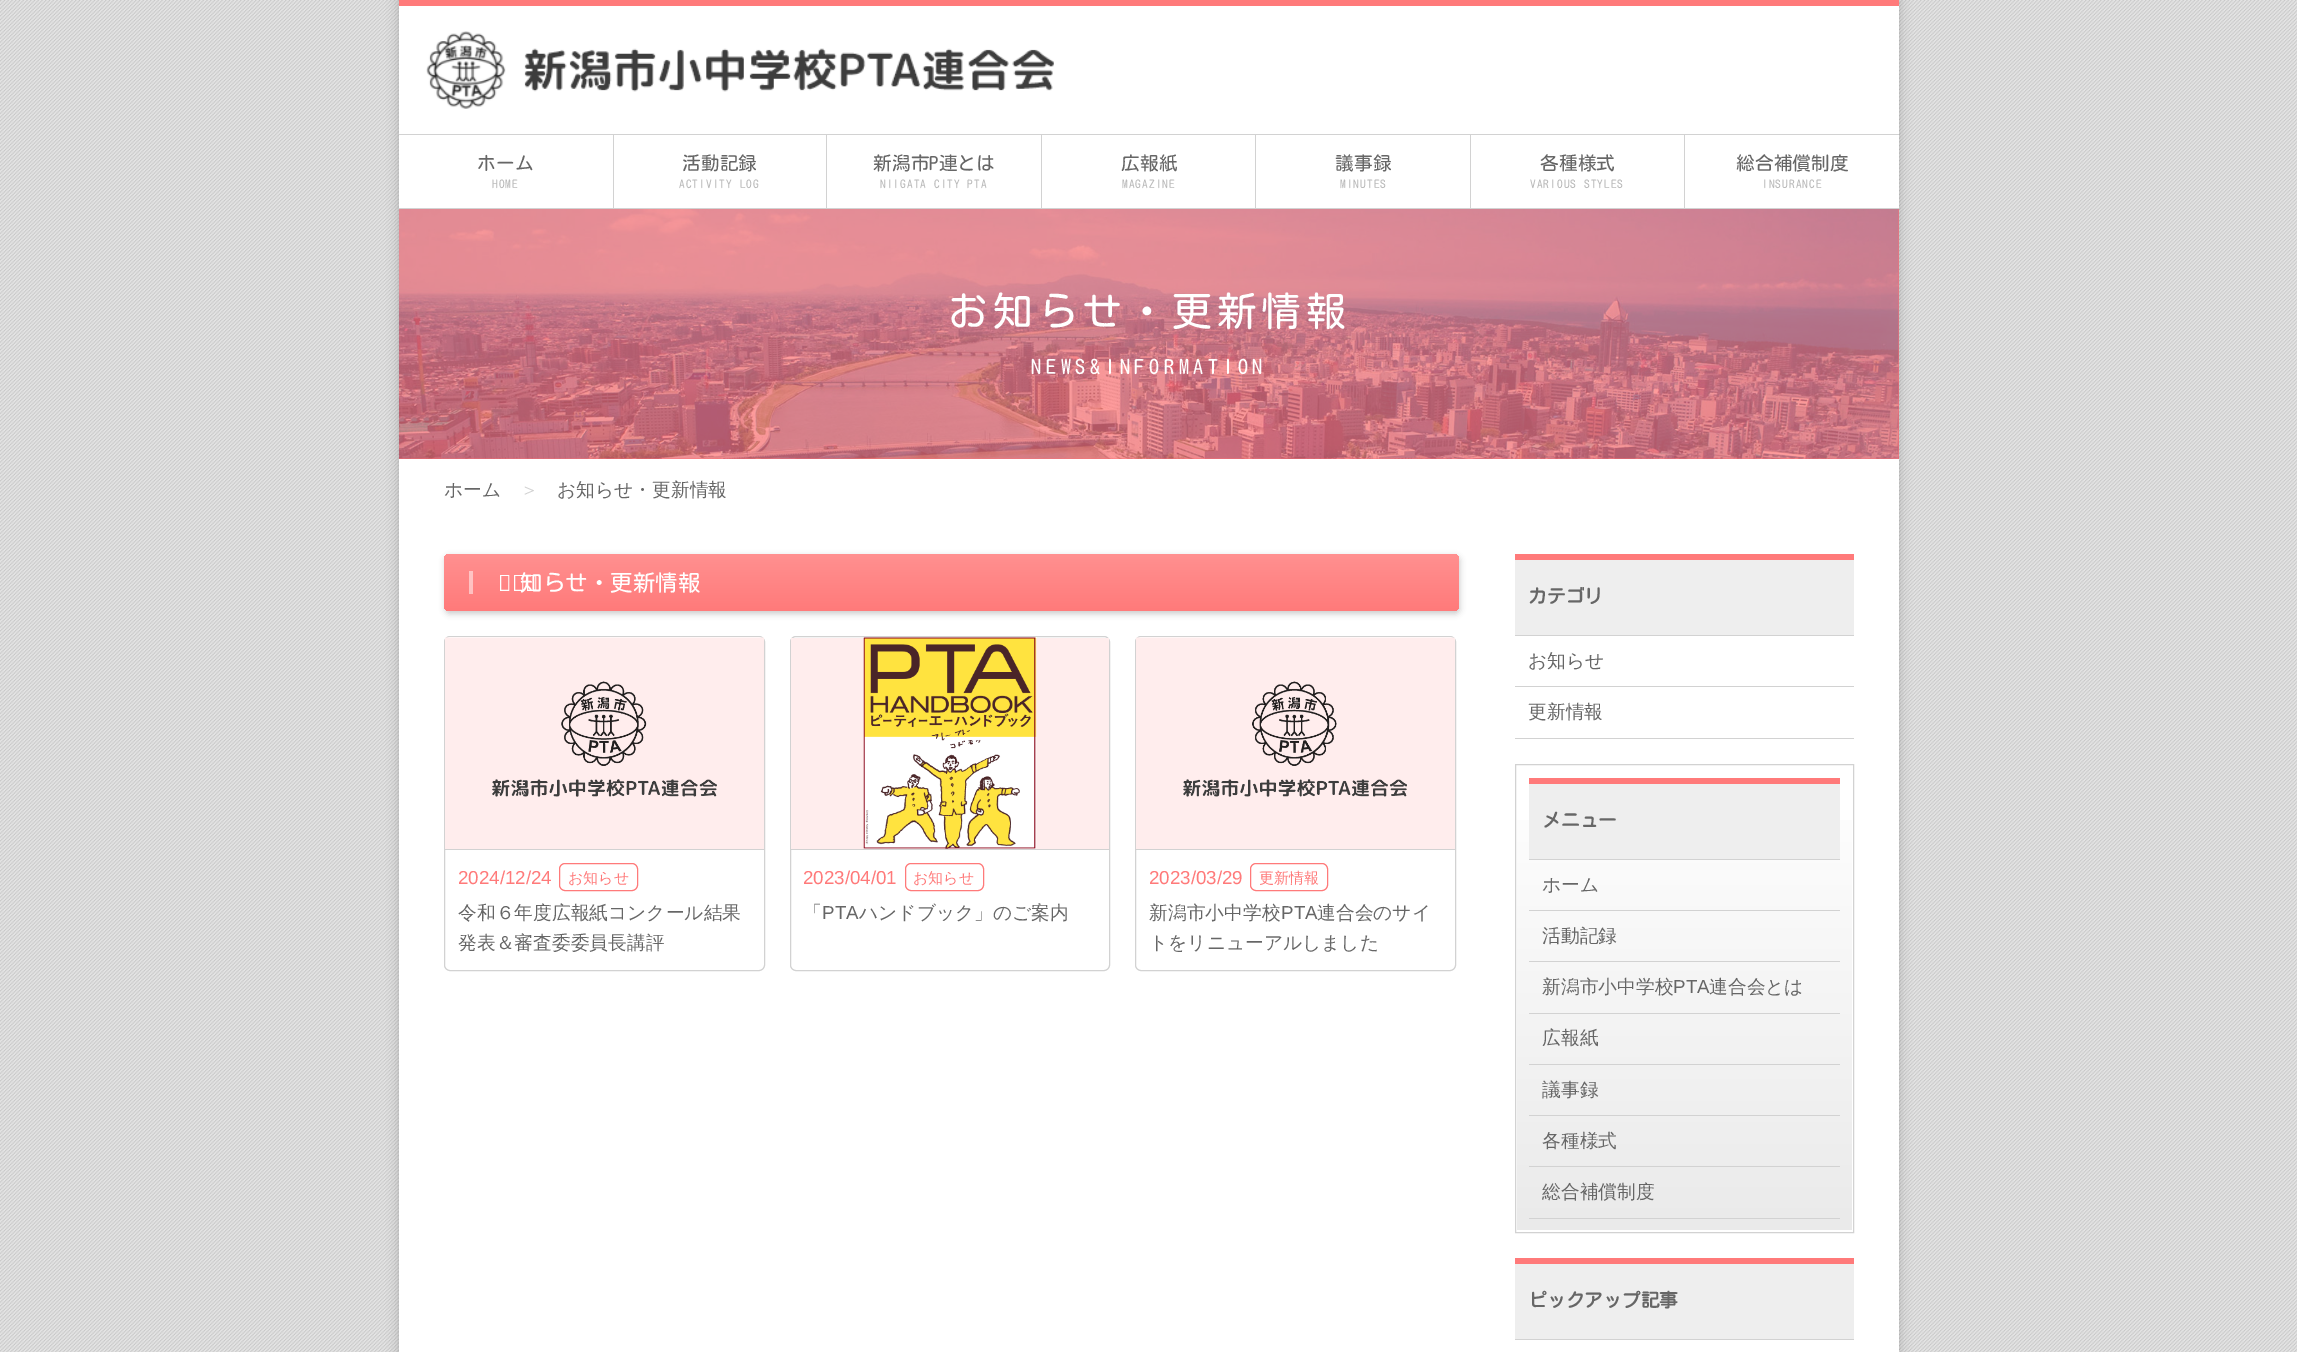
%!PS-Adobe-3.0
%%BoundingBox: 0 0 2297 1352
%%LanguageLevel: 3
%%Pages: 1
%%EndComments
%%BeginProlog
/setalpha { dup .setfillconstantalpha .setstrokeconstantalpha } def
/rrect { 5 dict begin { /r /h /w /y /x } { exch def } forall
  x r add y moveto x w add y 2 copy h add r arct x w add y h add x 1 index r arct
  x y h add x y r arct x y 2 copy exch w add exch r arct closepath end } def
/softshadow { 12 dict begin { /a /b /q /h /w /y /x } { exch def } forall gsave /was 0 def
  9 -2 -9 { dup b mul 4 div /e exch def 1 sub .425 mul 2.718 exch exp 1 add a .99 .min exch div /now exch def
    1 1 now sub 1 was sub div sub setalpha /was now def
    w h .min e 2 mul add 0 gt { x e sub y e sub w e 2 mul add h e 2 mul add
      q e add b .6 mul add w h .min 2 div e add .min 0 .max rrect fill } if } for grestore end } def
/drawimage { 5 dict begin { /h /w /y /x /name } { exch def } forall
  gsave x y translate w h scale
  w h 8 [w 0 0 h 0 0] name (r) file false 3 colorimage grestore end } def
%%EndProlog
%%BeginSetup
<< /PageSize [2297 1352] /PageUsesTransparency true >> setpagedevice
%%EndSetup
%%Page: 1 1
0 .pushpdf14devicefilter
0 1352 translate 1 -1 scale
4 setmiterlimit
1 setgray
0 0 2297 1352 rectfill
(images/1.raw) 0 0 2297 1352 drawimage
0 setgray
399 0 1500 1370 0 6 0.2 softshadow
1 setgray
399 6 1500 1346 rectfill
1 0.478 0.478 setrgbcolor
399 0 1500 6 rectfill
(images/2.raw) 426 31 628 78 drawimage
0.824 setgray
399 134 1500 1 rectfill
399 208 1500 1 rectfill
613 135 1 73 rectfill
826 135 1 73 rectfill
1041 135 1 73 rectfill
1255 135 1 73 rectfill
1470 135 1 73 rectfill
1684 135 1 73 rectfill
1 0.443 0.451 setrgbcolor
399 209 1500 250 rectfill
(images/3.raw) 399 209 1500 250 drawimage
0.8 setgray
445 556 1015 58 5 3 1 softshadow
gsave 444 554 1015 57 5 rrect clip newpath
<< /ShadingType 2 /ColorSpace /DeviceRGB /Coords [951 554 951 611] /Extend [true true] /Function << /FunctionType 2 /Domain [0 1] /C0 [1 0.565 0.565] /C1 [1 0.478 0.478] /N 1 >> >> shfill grestore
0.5 setalpha
1 setgray
469 571 4 23 rectfill
1 setalpha
0.824 setgray
444.5 636.5 320 334 5.5 rrect stroke
1 0.929 0.929 setrgbcolor
445 638 319 211 rectfill
(images/4.raw) 445 637 319 160 drawimage
0.824 setgray
445 849 319 1 rectfill
1 0.478 0.478 setrgbcolor
559.5 863.5 78 27 5.5 rrect stroke
0.824 setgray
790.5 636.5 319 334 5.5 rrect stroke
1 0.929 0.929 setrgbcolor
791 638 318 211 rectfill
(images/5.raw) 863 637 174 212 drawimage
0.824 setgray
791 849 318 1 rectfill
1 0.478 0.478 setrgbcolor
905.5 863.5 78 27 5.5 rrect stroke
0.824 setgray
1135.5 636.5 320 334 5.5 rrect stroke
1 0.929 0.929 setrgbcolor
1136 638 319 211 rectfill
(images/6.raw) 1136 637 318 160 drawimage
0.824 setgray
1136 849 319 1 rectfill
1 0.478 0.478 setrgbcolor
1250.5 863.5 77 27 5.5 rrect stroke
0.933 setgray
1515 560 339 75 rectfill
1 0.478 0.478 setrgbcolor
1515 554 339 6 rectfill
0.824 setgray
1515 635 339 1 rectfill
1515 686 339 1 rectfill
1515 738 339 1 rectfill
gsave newpath 1517 820 moveto 1852 820 lineto 1852 1230 lineto 1517 1230 lineto closepath clip newpath
<< /ShadingType 2 /ColorSpace /DeviceRGB /Coords [1684 765 1684 1231] /Extend [true true] /Function << /FunctionType 2 /Domain [0 1] /C0 [1 1 1] /C1 [0.918 0.918 0.918] /N 1 >> >> shfill grestore
1515.5 764.5 338 468 rectstroke
0.933 setgray
1529 784 311 75 rectfill
1 0.478 0.478 setrgbcolor
1529 778 311 6 rectfill
0.824 setgray
1529 859 311 1 rectfill
1529 910 311 1 rectfill
1529 961 311 1 rectfill
1529 1013 311 1 rectfill
1529 1064 311 1 rectfill
1529 1115 311 1 rectfill
1529 1166 311 1 rectfill
1529 1218 311 1 rectfill
0.933 setgray
1515 1264 339 75 rectfill
1 0.478 0.478 setrgbcolor
1515 1258 339 6 rectfill
0.824 setgray
1515 1339 339 1 rectfill
/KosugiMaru-Regular [18.75 0 0 -18.75 0 0] selectfont
0.4 setgray
477 170 moveto (ホーム) show
/KosugiMaru-Regular [11.25 0 0 -11.25 0 0] selectfont
0.729 setgray
492 188 moveto 1.1 0 (HOME) ashow
/KosugiMaru-Regular [18.75 0 0 -18.75 0 0] selectfont
0.4 setgray
682 170 moveto (活動記録) show
/KosugiMaru-Regular [11.25 0 0 -11.25 0 0] selectfont
0.729 setgray
679 188 moveto 1.1 0 (ACTIVITY LOG) ashow
/KosugiMaru-Regular [18.75 0 0 -18.75 0 0] selectfont
0.4 setgray
873 170 moveto (新潟市P連とは) show
/KosugiMaru-Regular [11.25 0 0 -11.25 0 0] selectfont
0.729 setgray
880 188 moveto 1.1 0 (NIIGATA CITY PTA) ashow
/KosugiMaru-Regular [18.75 0 0 -18.75 0 0] selectfont
0.4 setgray
1121 170 moveto (広報紙) show
/KosugiMaru-Regular [11.25 0 0 -11.25 0 0] selectfont
0.729 setgray
1122 188 moveto 1.1 0 (MAGAZINE) ashow
/KosugiMaru-Regular [18.75 0 0 -18.75 0 0] selectfont
0.4 setgray
1335 170 moveto (議事録) show
/KosugiMaru-Regular [11.25 0 0 -11.25 0 0] selectfont
0.729 setgray
1340 188 moveto 1.1 0 (MINUTES) ashow
/KosugiMaru-Regular [18.75 0 0 -18.75 0 0] selectfont
0.4 setgray
1540 170 moveto (各種様式) show
/KosugiMaru-Regular [11.25 0 0 -11.25 0 0] selectfont
0.729 setgray
1530 188 moveto 1.1 0 (VARIOUS STYLES) ashow
/KosugiMaru-Regular [18.75 0 0 -18.75 0 0] selectfont
0.4 setgray
1736 170 moveto (総合補償制度) show
/KosugiMaru-Regular [11.25 0 0 -11.25 0 0] selectfont
0.729 setgray
1762 188 moveto 1.1 0 (INSURANCE) ashow
/KosugiMaru-Regular [40 0 0 -40 0 0] selectfont
1 setgray
948 326 moveto 4.75 0 (お知らせ・更新情報) ashow
/KosugiMaru-Regular [20 0 0 -20 0 0] selectfont
1031 374 moveto 4.75 0 (NEWS&INFORMATION) ashow
/WenQuanYiZenHei-Medium [18.75 0 0 -18.75 0 0] selectfont
0.4 setgray
444 496 moveto (ホーム) show
0.824 setgray
520 496 moveto (＞) show
0.4 setgray
557 496 moveto (お知らせ・更新情報) show
/NotoSans-Regular [22.5 0 0 -22.5 0 0] selectfont
1 setgray
498 591 moveto (お) show
/KosugiMaru-Regular [22.5 0 0 -22.5 0 0] selectfont
520 591 moveto (知らせ・更新情報) show
/LiberationSans-Regular [18.75 0 0 -18.75 0 0] selectfont
1 0.478 0.478 setrgbcolor
458 884 moveto (2024/12/24) show
/WenQuanYiZenHei-Medium [15 0 0 -15 0 0] selectfont
568 883 moveto (お知らせ) show
/WenQuanYiZenHei-Medium [18.75 0 0 -18.75 0 0] selectfont
0.4 setgray
458 919 moveto (令和６年度広報紙コンクール結果) show
458 949 moveto (発表＆審査委委員長講評) show
/LiberationSans-Regular [18.75 0 0 -18.75 0 0] selectfont
1 0.478 0.478 setrgbcolor
803 884 moveto (2023/04/01) show
/WenQuanYiZenHei-Medium [15 0 0 -15 0 0] selectfont
913 883 moveto (お知らせ) show
/WenQuanYiZenHei-Medium [18.75 0 0 -18.75 0 0] selectfont
0.4 setgray
803 919 moveto (「) show
/LiberationSans-Regular [18.75 0 0 -18.75 0 0] selectfont
822 919 moveto (PTA) show
/WenQuanYiZenHei-Medium [18.75 0 0 -18.75 0 0] selectfont
859 919 moveto (ハンドブック」のご案内) show
/LiberationSans-Regular [18.75 0 0 -18.75 0 0] selectfont
1 0.478 0.478 setrgbcolor
1149 884 moveto (2023/03/29) show
/WenQuanYiZenHei-Medium [15 0 0 -15 0 0] selectfont
1259 883 moveto (更新情報) show
/WenQuanYiZenHei-Medium [18.75 0 0 -18.75 0 0] selectfont
0.4 setgray
1149 919 moveto (新潟市小中学校) show
/LiberationSans-Regular [18.75 0 0 -18.75 0 0] selectfont
1281 919 moveto (PTA) show
/WenQuanYiZenHei-Medium [18.75 0 0 -18.75 0 0] selectfont
1317 919 moveto (連合会のサイ) show
1149 949 moveto (トをリニューアルしました) show
/KosugiMaru-Bold [18.75 0 0 -18.75 0 0] selectfont
1528 603 moveto (カテゴリ) show
/WenQuanYiZenHei-Medium [18.75 0 0 -18.75 0 0] selectfont
1528 667 moveto (お知らせ) show
1528 718 moveto (更新情報) show
/KosugiMaru-Bold [18.75 0 0 -18.75 0 0] selectfont
1542 827 moveto (メニュー) show
/WenQuanYiZenHei-Medium [18.75 0 0 -18.75 0 0] selectfont
1542 891 moveto (ホーム) show
1542 942 moveto (活動記録) show
1542 993 moveto (新潟市小中学校) show
/LiberationSans-Regular [18.75 0 0 -18.75 0 0] selectfont
1673 993 moveto (PTA) show
/WenQuanYiZenHei-Medium [18.75 0 0 -18.75 0 0] selectfont
1709 993 moveto (連合会とは) show
1542 1044 moveto (広報紙) show
1542 1096 moveto (議事録) show
1542 1147 moveto (各種様式) show
1542 1198 moveto (総合補償制度) show
/KosugiMaru-Bold [18.75 0 0 -18.75 0 0] selectfont
1528 1307 moveto (ピックアップ記事) show
.poppdf14devicefilter showpage
%%EOF
